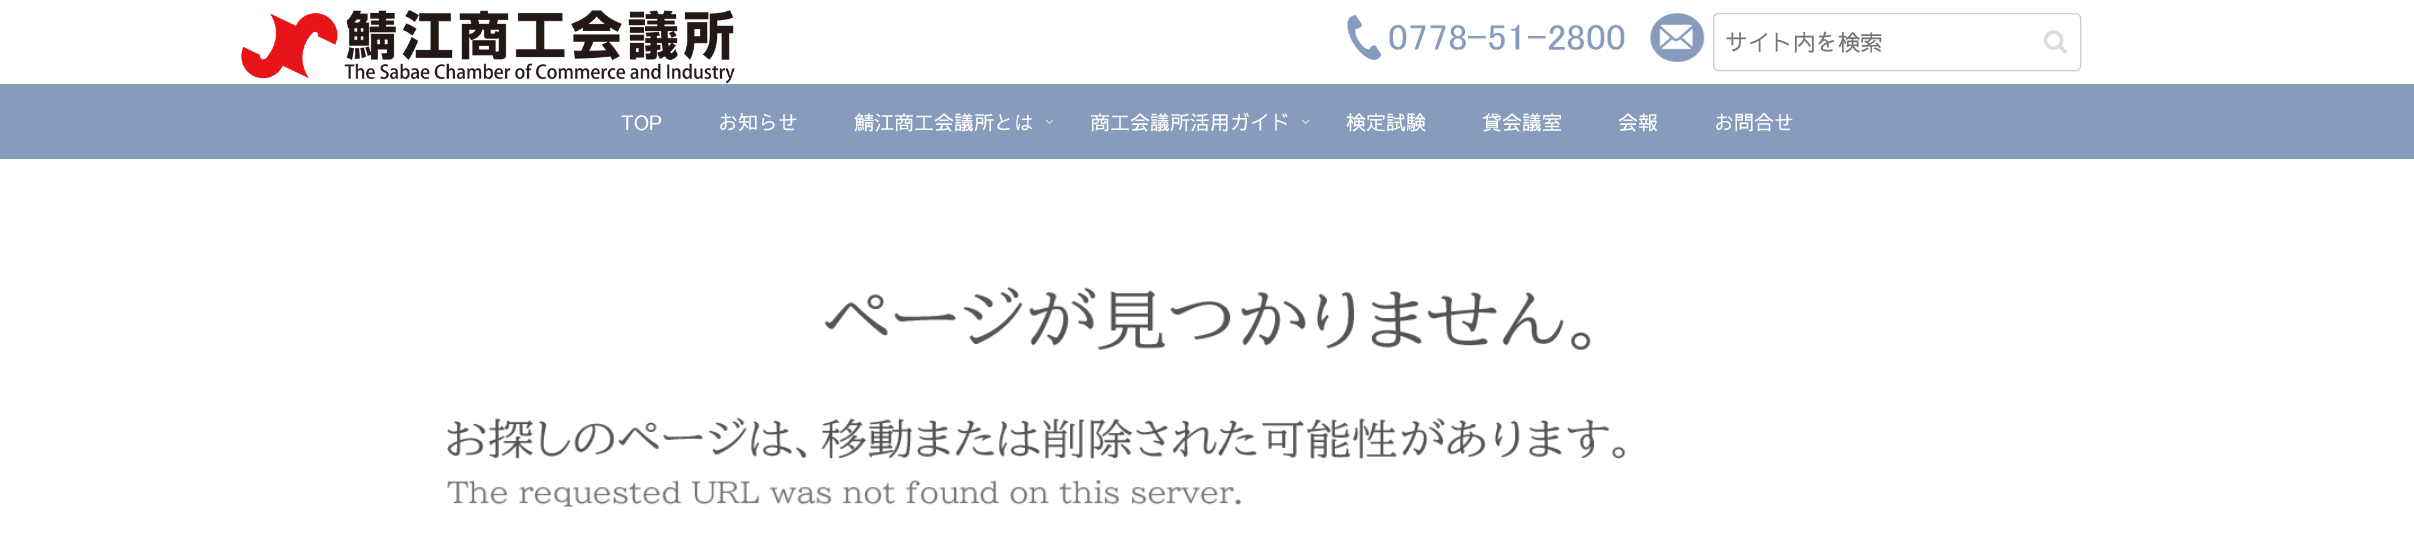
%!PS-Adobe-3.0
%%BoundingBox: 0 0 2414 557
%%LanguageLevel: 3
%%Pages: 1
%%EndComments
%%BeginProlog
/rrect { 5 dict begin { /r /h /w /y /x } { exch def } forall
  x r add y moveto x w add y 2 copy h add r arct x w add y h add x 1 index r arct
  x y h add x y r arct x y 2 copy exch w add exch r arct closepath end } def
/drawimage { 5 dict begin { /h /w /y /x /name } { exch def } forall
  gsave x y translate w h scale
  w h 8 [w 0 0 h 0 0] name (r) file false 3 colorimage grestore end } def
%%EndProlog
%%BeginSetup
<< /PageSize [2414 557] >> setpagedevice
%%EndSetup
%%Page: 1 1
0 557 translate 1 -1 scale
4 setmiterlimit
1 setgray
0 0 2414 557 rectfill
(images/1.raw) 241 10 494 74 drawimage
(images/2.raw) 1347 14 278 46 drawimage
(images/3.raw) 1650 13 55 49 drawimage
0.8 setgray
1713.5 13.5 367 57 4.5 rrect stroke
(images/4.raw) 2043 30 24 24 drawimage
0.529 0.608 0.737 setrgbcolor
0 84 2414 75 rectfill
(images/5.raw) 1045 119 9 5 drawimage
(images/6.raw) 1302 119 8 5 drawimage
(images/7.raw) 447 286 1179 221 drawimage
/SawarabiGothic-Regular [22.5 0 0 -22.5 0 0] selectfont
0.459 setgray
1725 51 moveto (サイト内を検索) show
/SawarabiGothic-Regular [20 0 0 -20 0 0] selectfont
1 setgray
621 130 moveto (TOP) show
718 130 moveto (お知らせ) show
854 130 moveto (鯖江商工会議所とは) show
1090 130 moveto (商工会議所活用ガイド) show
1346 130 moveto (検定試験) show
1482 130 moveto (貸会議室) show
1618 130 moveto (会報) show
1714 130 moveto (お問合せ) show
showpage
%%EOF
